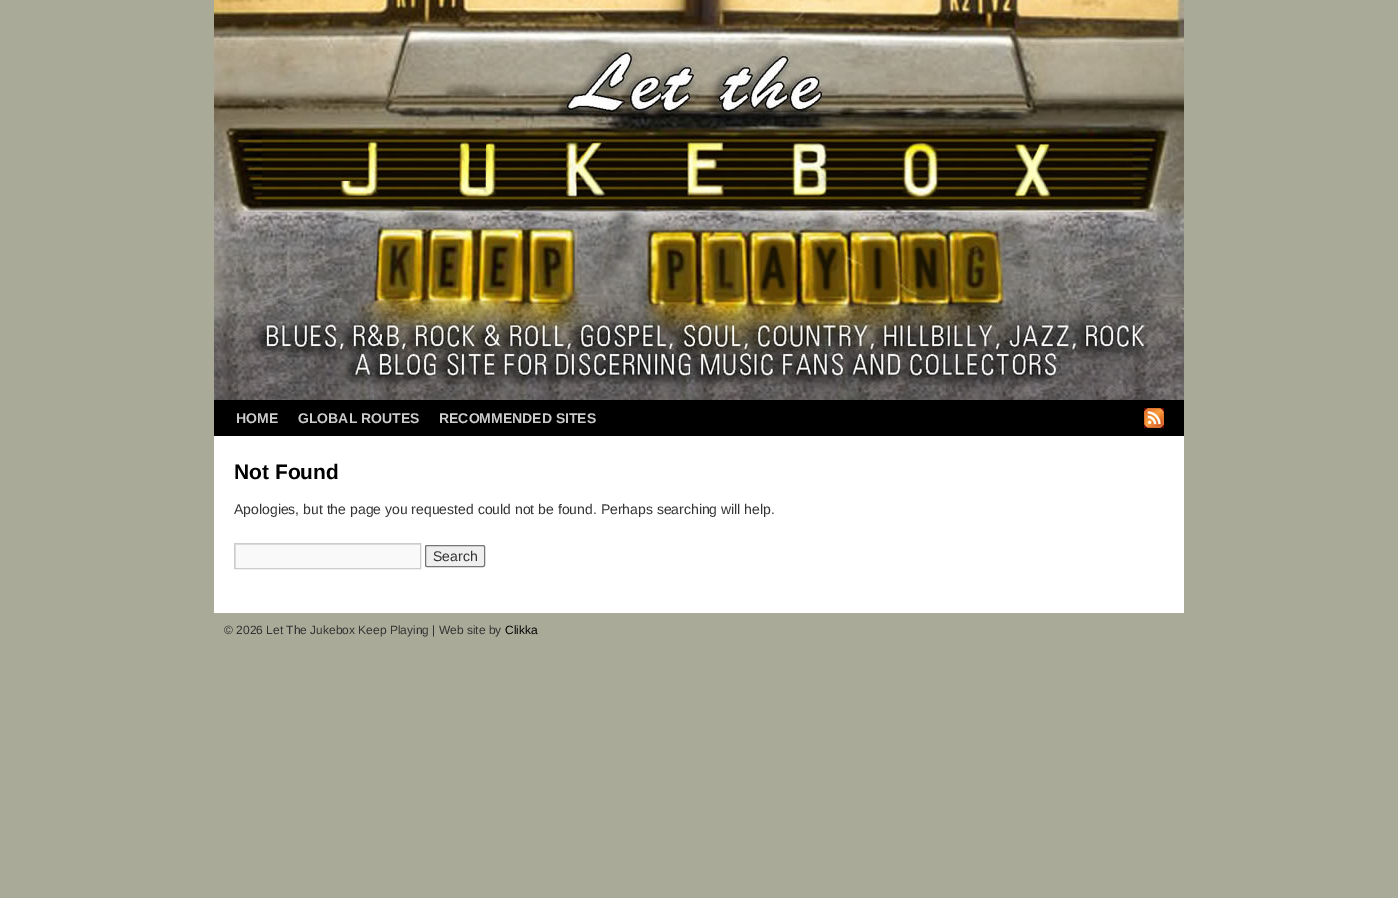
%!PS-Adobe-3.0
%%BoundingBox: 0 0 1398 898
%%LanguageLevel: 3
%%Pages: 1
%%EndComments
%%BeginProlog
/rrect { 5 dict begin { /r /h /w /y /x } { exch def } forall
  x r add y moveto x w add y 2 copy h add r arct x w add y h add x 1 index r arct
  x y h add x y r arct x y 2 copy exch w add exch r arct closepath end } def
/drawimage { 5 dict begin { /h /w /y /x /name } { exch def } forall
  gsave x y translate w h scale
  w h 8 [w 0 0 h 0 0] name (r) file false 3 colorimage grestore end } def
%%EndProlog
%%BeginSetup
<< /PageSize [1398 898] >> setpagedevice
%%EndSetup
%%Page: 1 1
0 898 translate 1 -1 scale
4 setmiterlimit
0.667 0.667 0.6 setrgbcolor
0 0 1398 898 rectfill
1 setgray
214 436 970 177 rectfill
(images/1.raw) 214 0 970 400 drawimage
0 setgray
214 400 970 36 rectfill
(images/2.raw) 1144 408 20 24 drawimage
0.976 setgray
236 545 184 23 rectfill
gsave
235 544 185 24 rectclip
0.878 setgray
newpath 136 445 moveto 519 445 lineto 519 667 lineto 136 667 lineto closepath 236 545 moveto 421 545 lineto 421 569 lineto 236 569 lineto closepath eofill
grestore
0.8 setgray
234.5 543.5 186 25 rectstroke
0.937 setgray
425.5 545.5 59 21 1.5 rrect gsave fill grestore
0.463 setgray
stroke
/LiberationSans-Bold [14 0 0 -14 0 0] selectfont
0.8 setgray
236 423 moveto (HOME) show
298 423 moveto (GLOBAL ROUTES) show
439 423 moveto (RECOMMENDED SITES) show
/LiberationSans-Bold [21 0 0 -21 0 0] selectfont
0 setgray
234 479 moveto (Not Found) show
/LiberationSans-Regular [14 0 0 -14 0 0] selectfont
0.2 setgray
234 514 moveto (Apologies, but the page you requested could not be found. Perhaps searching will help.) show
433 561 moveto (Search) show
/LiberationSans-Regular [12 0 0 -12 0 0] selectfont
224 634 moveto (© 2026 Let The Jukebox Keep Playing | Web site by) show
0 setgray
505 634 moveto (Clikka) show
showpage
%%EOF
